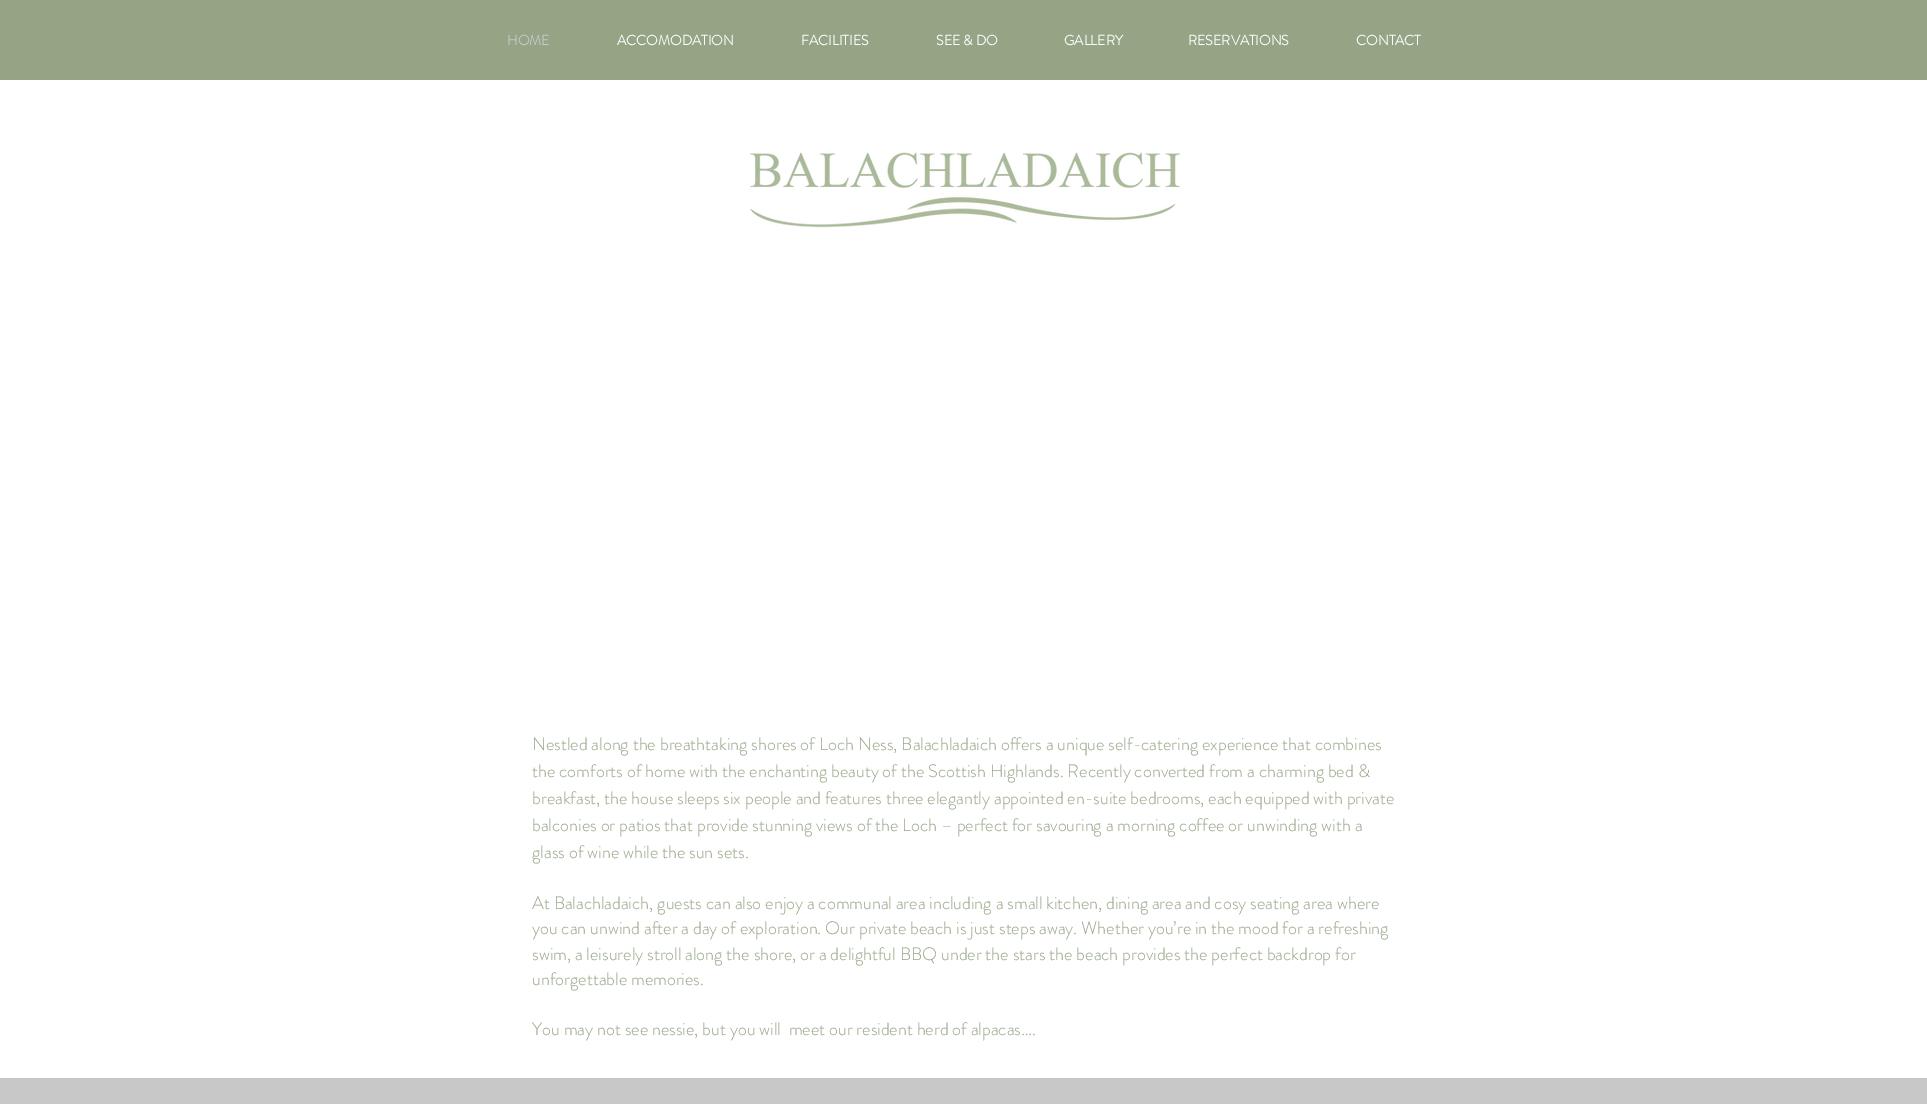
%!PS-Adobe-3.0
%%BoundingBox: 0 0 1927 1104
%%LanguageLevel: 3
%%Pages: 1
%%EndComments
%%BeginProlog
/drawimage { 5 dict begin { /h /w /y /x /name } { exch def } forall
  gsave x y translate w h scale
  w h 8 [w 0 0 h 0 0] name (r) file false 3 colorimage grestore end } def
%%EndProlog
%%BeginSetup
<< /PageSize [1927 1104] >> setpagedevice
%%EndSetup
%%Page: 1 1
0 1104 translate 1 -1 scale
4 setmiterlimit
1 setgray
0 0 1927 1104 rectfill
0.58 0.643 0.522 setrgbcolor
0 0 1927 80 rectfill
(images/1.raw) 750 152 430 76 drawimage
0.784 setgray
0 1078 1927 26 rectfill
/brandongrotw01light-Bold [14 0 0 -14 0 0] selectfont
507 45 moveto (HOME) show
1 setgray
617 45 moveto (ACCOMODATION) show
801 45 moveto (FACILITIES) show
936 45 moveto (SEE & DO) show
1064 45 moveto (GALLERY) show
1188 45 moveto (RESERVATIONS) show
1356 45 moveto (CONTACT) show
/brandongrotw01light-Light [18 0 0 -18 0 0] selectfont
0.58 0.643 0.522 setrgbcolor
532 750 moveto (Nestled along the breathtaking shores of Loch Ness, Balachladaich offers a unique self-catering experience that combines) show
532 777 moveto (the comforts of home with the enchanting beauty of the Scottish Highlands. Recently converted from a charming bed &) show
532 804 moveto (breakfast, the house sleeps six people and features three elegantly appointed en-suite bedrooms, each equipped with private) show
532 831 moveto (balconies or patios that provide stunning views of the Loch – perfect for savouring a morning coffee or unwinding with a) show
532 858 moveto (glass of wine while the sun sets.) show
532 909 moveto (At Balachladaich, guests can also enjoy a communal area including a small kitchen, dining area and cosy seating area where) show
532 934 moveto (you can unwind after a day of exploration. Our private beach is just steps away. Whether you’re in the mood for a refreshing) show
532 960 moveto (swim, a leisurely stroll along the shore, or a delightful BBQ under the stars the beach provides the perfect backdrop for) show
532 985 moveto (unforgettable memories.) show
532 1035 moveto (You may not see nessie, but you will  meet our resident herd of alpacas….) show
showpage
%%EOF
